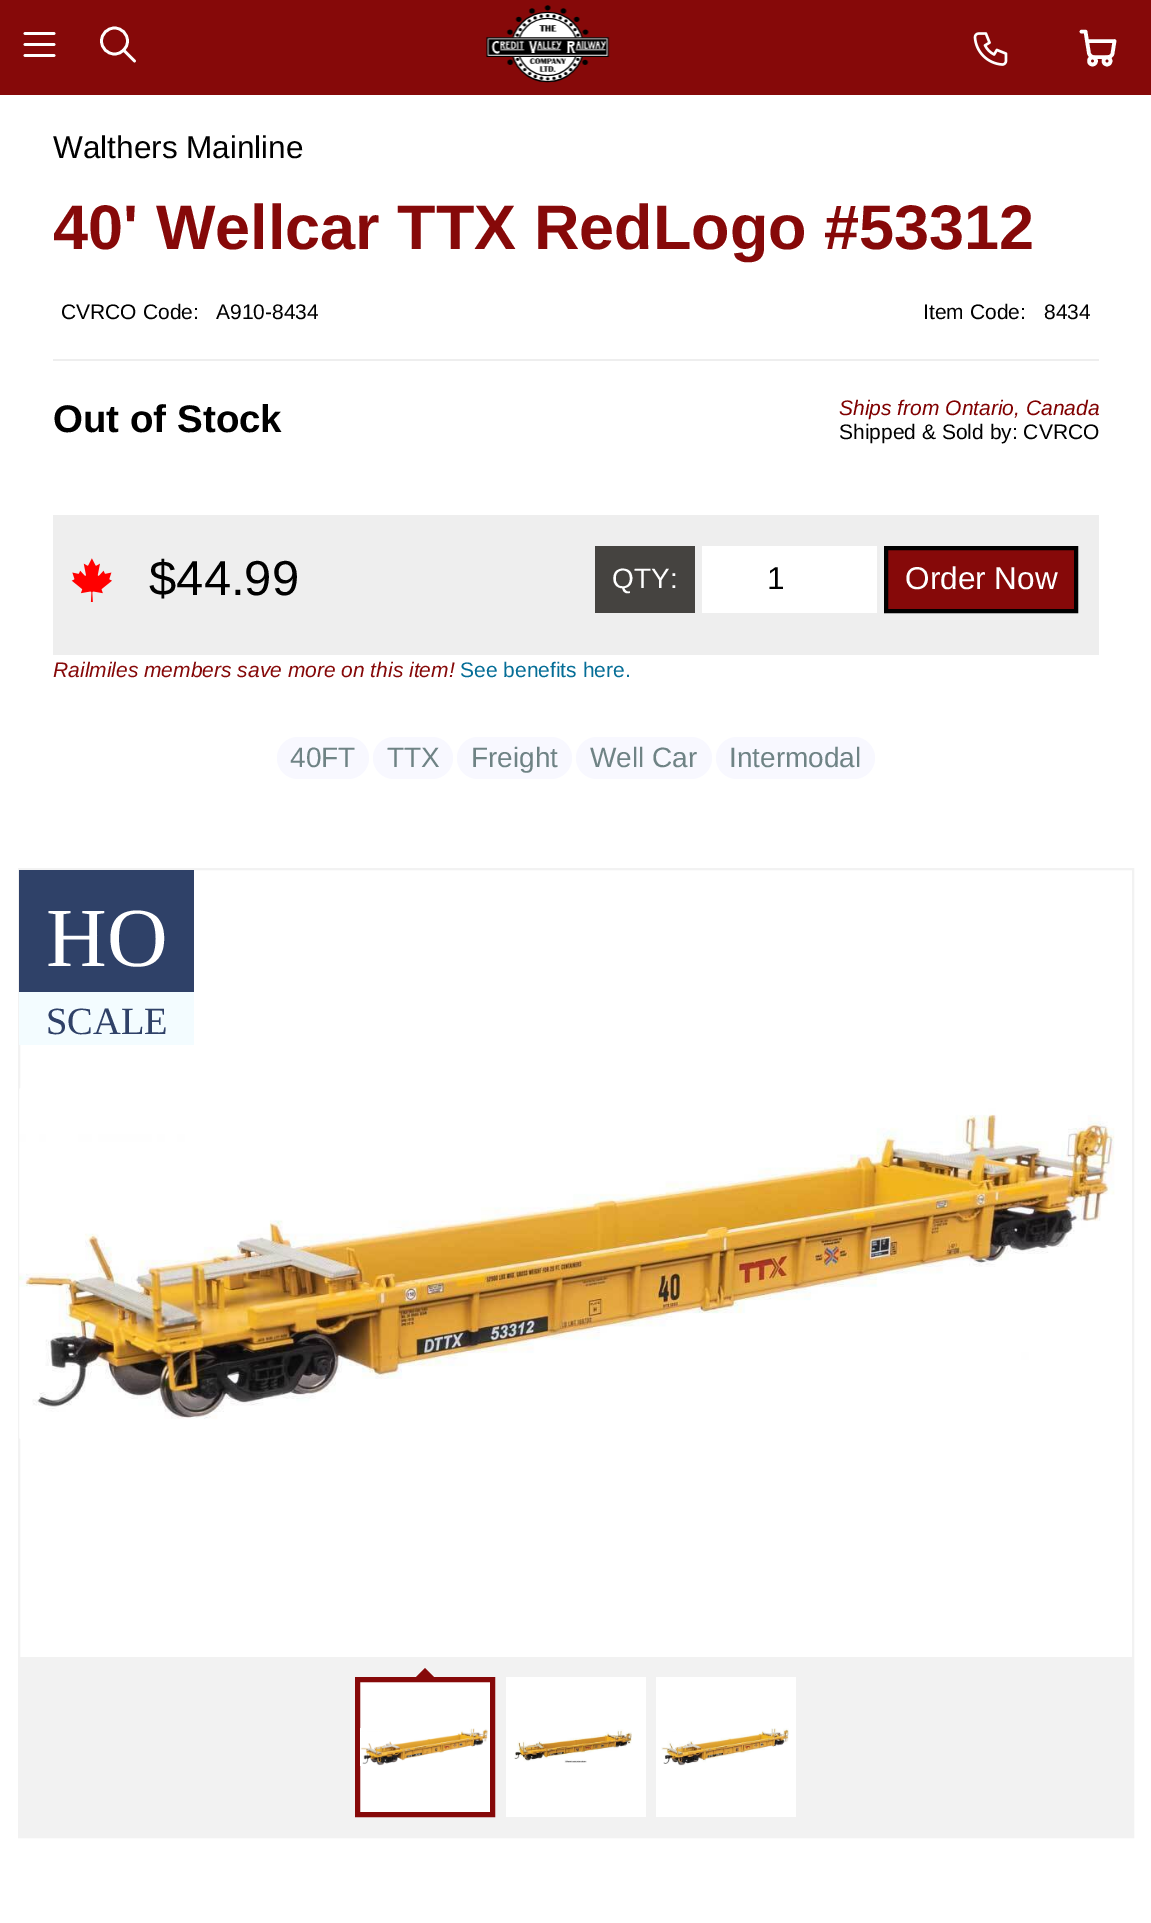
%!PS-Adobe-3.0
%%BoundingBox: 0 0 1151 1923
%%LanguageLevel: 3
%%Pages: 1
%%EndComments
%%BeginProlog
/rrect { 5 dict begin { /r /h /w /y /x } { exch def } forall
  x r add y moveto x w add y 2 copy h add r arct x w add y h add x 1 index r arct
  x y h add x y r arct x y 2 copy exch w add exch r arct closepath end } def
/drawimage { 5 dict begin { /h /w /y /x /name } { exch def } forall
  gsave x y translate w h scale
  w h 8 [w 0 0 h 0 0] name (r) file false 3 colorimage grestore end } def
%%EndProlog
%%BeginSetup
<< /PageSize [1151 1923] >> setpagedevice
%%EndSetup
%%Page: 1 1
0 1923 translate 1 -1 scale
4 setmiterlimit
1 setgray
0 0 1151 1923 rectfill
0.525 0.035 0.035 setrgbcolor
0 0 1151 95 rectfill
1 setgray
2.7 setlinewidth
1 setlinecap
1 setlinejoin
newpath 25 33.5 moveto 54 33.5 lineto 25 44.5 moveto 54 44.5 lineto 25 55.5 moveto 54 55.5 lineto stroke
0 setlinecap
0 setlinejoin
newpath 114.5 41 13 0 360 arc closepath stroke
1 setlinecap
1 setlinejoin
newpath 134.5 61 moveto 123.5 50 lineto stroke
(images/1.raw) 486 5 124 78 drawimage
(images/2.raw) 973 32 35 34 drawimage
3.6 setlinewidth
0 setlinecap
0 setlinejoin
newpath 1092.5 61 3.5 0 360 arc closepath stroke
newpath 1107 61 3.5 0 360 arc closepath stroke
1 setlinecap
1 setlinejoin
newpath 1081.5 31.5 moveto 1085.5 31.5 lineto 1089 53.5 lineto 1090 56 1092 57.5 1094.5 57 curveto 1107 57 lineto 1109.5 57.5 1112 56 1112.5 53.5 curveto 1114.5 41 lineto 1087 41 lineto stroke
0.933 setgray
53 359 1046 2 rectfill
53 515 1046 140 rectfill
(images/3.raw) 71 558 41 44 drawimage
0.271 0.263 0.251 setrgbcolor
595 546 100 67 rectfill
1 setgray
702 546 175 67 rectfill
0.525 0.035 0.035 setrgbcolor
newpath 886 548 moveto 1076 548 lineto 1076 611 lineto 886 611 lineto closepath gsave fill grestore
0 setgray
4 setlinewidth
0 setlinecap
0 setlinejoin
stroke
0.973 0.973 1 setrgbcolor
277 737 92 42 21 rrect fill
373 737 80 42 21 rrect fill
457 737 115 42 21 rrect fill
576 737 136 42 21 rrect fill
716 737 159 42 21 rrect fill
0.949 setgray
2 setlinewidth
19 869 1114 968 rectstroke
0.184 0.255 0.408 setrgbcolor
19 870 175 122 rectfill
0.953 0.988 1 setrgbcolor
19 992 175 53 rectfill
(images/4.raw) 19 1088 1096 351 drawimage
0.949 setgray
20 1657 1112 179 rectfill
1 setgray
newpath 357.5 1679.5 moveto 492.5 1679.5 lineto 492.5 1814.5 lineto 357.5 1814.5 lineto closepath gsave fill grestore
0.525 0.035 0.035 setrgbcolor
5 setlinewidth
stroke
newpath 439 1682 moveto 411 1682 lineto 425 1668 lineto closepath fill
(images/5.raw) 360 1728 128 38 drawimage
1 setgray
506 1677 140 140 rectfill
(images/6.raw) 514 1729 118 34 drawimage
656 1677 140 140 rectfill
(images/7.raw) 661 1728 128 38 drawimage
/LiberationSans-Regular [31.5 0 0 -31.5 0 0] selectfont
0 setgray
53 158 moveto (Walthers Mainline) show
/LiberationSans-Bold [63 0 0 -63 0 0] selectfont
0.525 0.035 0.035 setrgbcolor
53 249 moveto (40' Wellcar TTX RedLogo #53312) show
/LiberationSans-Regular [21 0 0 -21 0 0] selectfont
0 setgray
61 319 moveto (CVRCO Code:) show
216 319 moveto (A910-8434) show
923 319 moveto (Item Code:) show
1044 319 moveto (8434) show
/LiberationSans-Bold [38.5 0 0 -38.5 0 0] selectfont
53 432 moveto (Out of Stock) show
/LiberationSans-Italic [21 0 0 -21 0 0] selectfont
0.502 0 0 setrgbcolor
839 415 moveto (Ships from Ontario, Canada) show
/LiberationSans-Regular [21 0 0 -21 0 0] selectfont
0 setgray
839 439 moveto (Shipped & Sold by: CVRCO) show
/LiberationSans-Regular [49 0 0 -49 0 0] selectfont
149 595 moveto ($44.99) show
/LiberationSans-Regular [28 0 0 -28 0 0] selectfont
1 setgray
612 588 moveto (QTY:) show
/LiberationSans-Regular [31.5 0 0 -31.5 0 0] selectfont
0 setgray
767 589 moveto (1) show
1 setgray
905 589 moveto (Order Now) show
/LiberationSans-Italic [21 0 0 -21 0 0] selectfont
0.525 0.035 0.035 setrgbcolor
53 677 moveto (Railmiles members save more on this item!) show
/LiberationSans-Regular [21 0 0 -21 0 0] selectfont
0.02 0.431 0.592 setrgbcolor
460 677 moveto (See benefits here.) show
/LiberationSans-Regular [28 0 0 -28 0 0] selectfont
0.435 0.514 0.522 setrgbcolor
290 767 moveto (40FT) show
387 767 moveto (TTX) show
471 767 moveto (Freight) show
590 767 moveto (Well Car) show
729 767 moveto (Intermodal) show
/LiberationSerif-Regular [84 0 0 -84 0 0] selectfont
1 setgray
46 966 moveto (HO) show
/LiberationSerif-Regular [38.5 0 0 -38.5 0 0] selectfont
0.184 0.255 0.408 setrgbcolor
46 1034 moveto (SCALE) show
showpage
%%EOF
